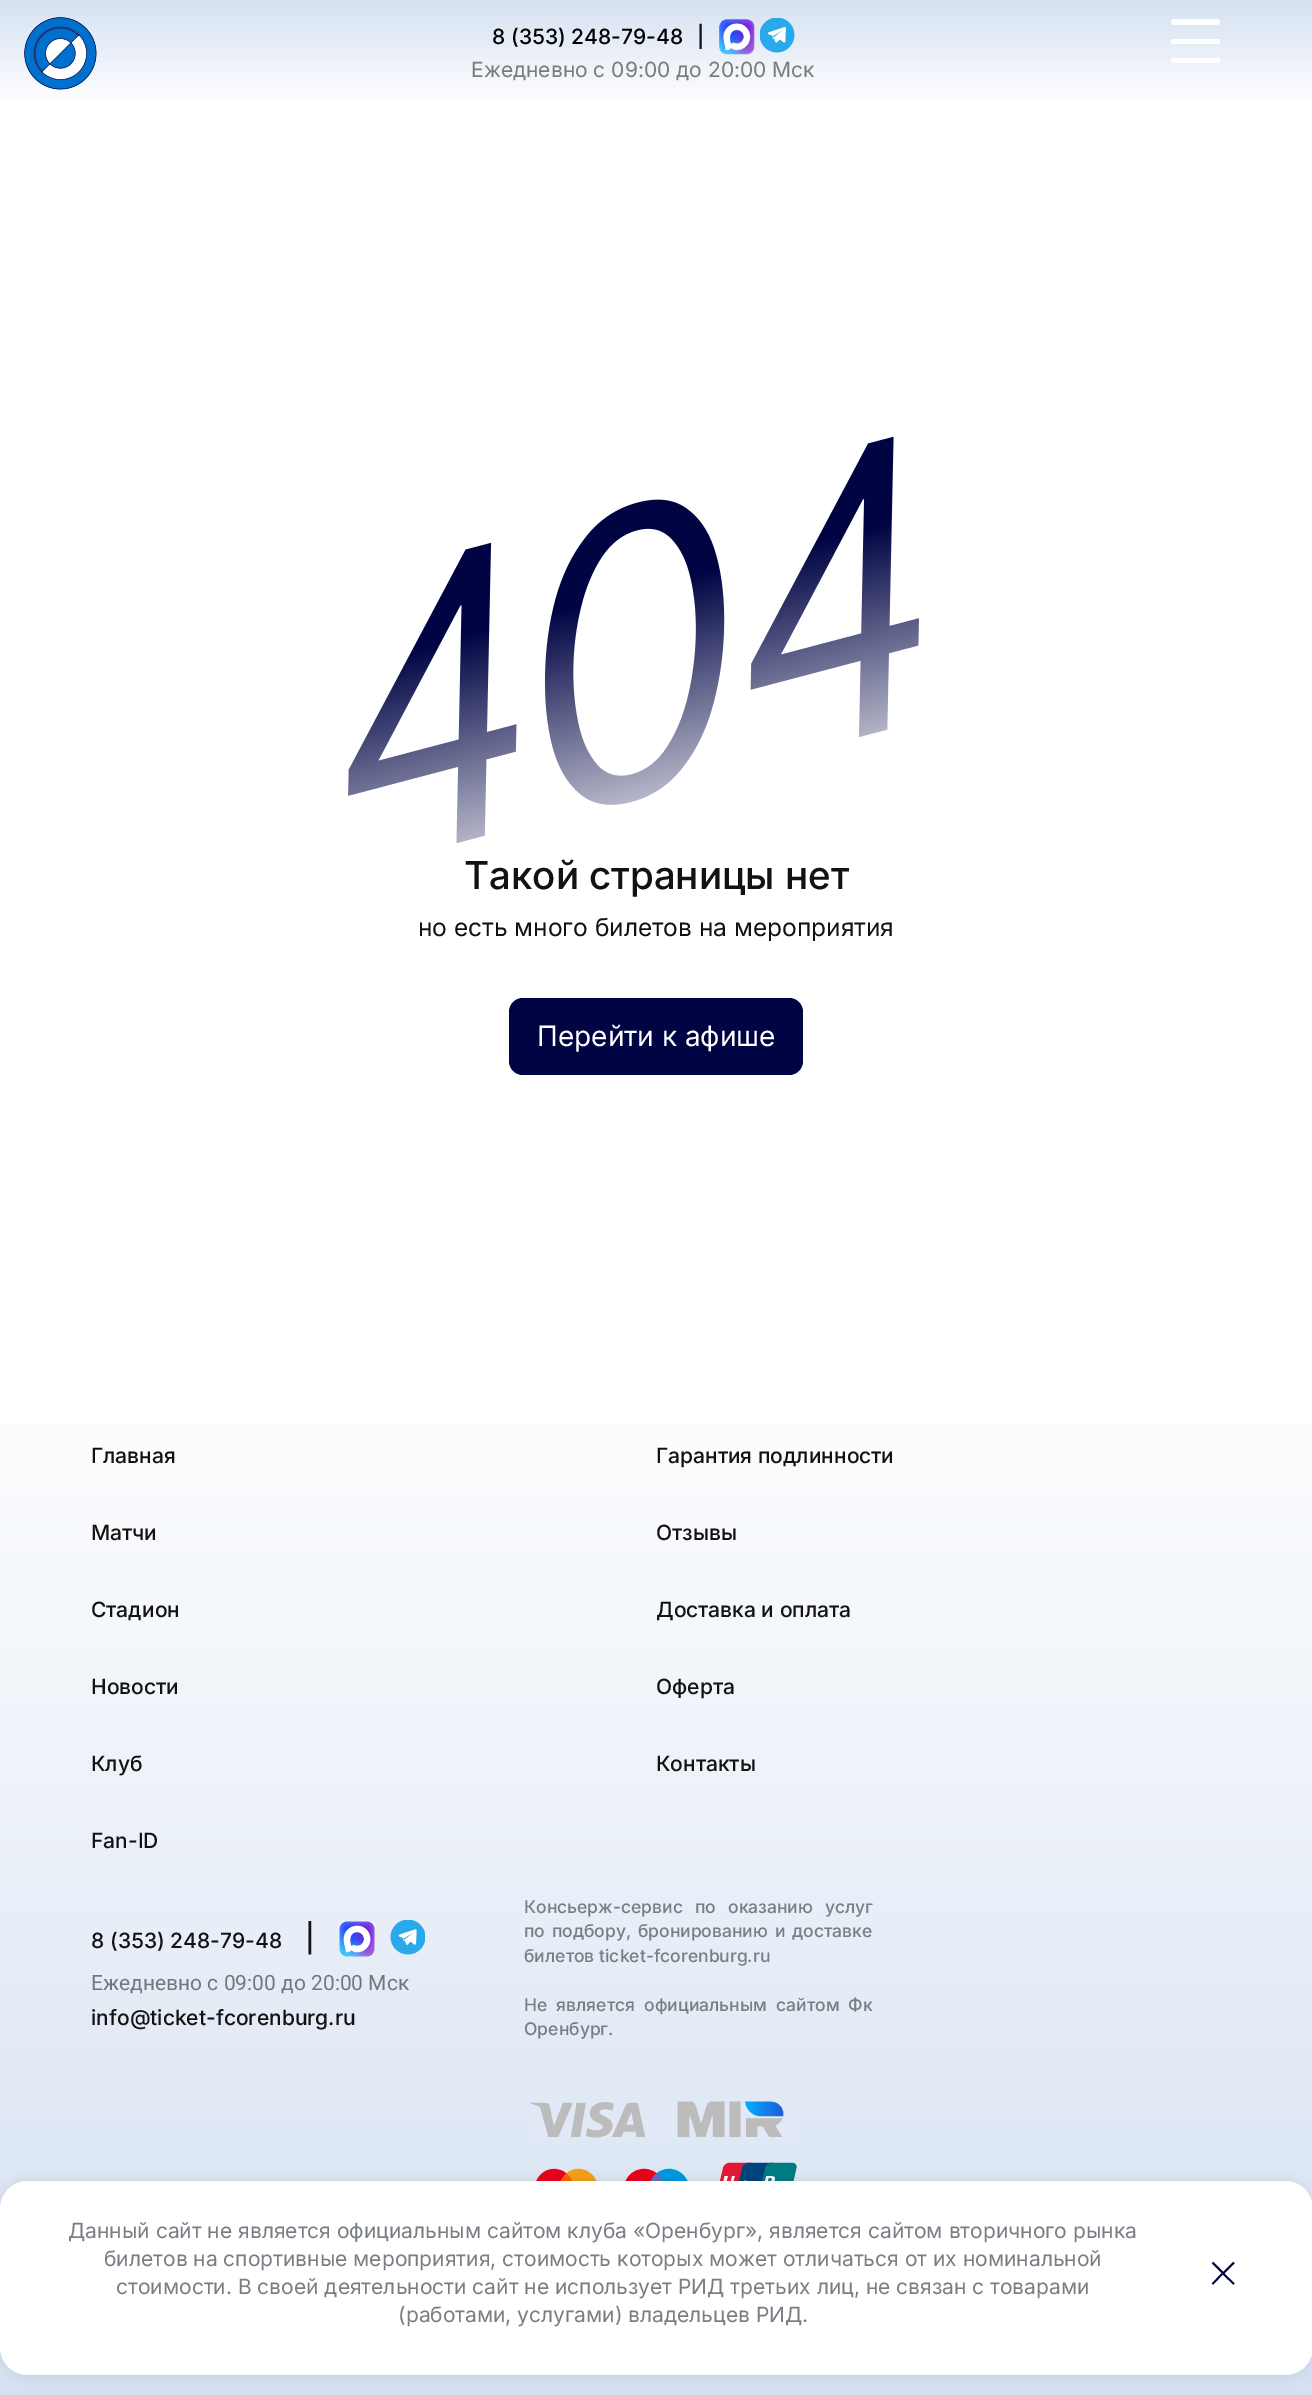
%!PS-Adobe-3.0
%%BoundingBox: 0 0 1312 2395
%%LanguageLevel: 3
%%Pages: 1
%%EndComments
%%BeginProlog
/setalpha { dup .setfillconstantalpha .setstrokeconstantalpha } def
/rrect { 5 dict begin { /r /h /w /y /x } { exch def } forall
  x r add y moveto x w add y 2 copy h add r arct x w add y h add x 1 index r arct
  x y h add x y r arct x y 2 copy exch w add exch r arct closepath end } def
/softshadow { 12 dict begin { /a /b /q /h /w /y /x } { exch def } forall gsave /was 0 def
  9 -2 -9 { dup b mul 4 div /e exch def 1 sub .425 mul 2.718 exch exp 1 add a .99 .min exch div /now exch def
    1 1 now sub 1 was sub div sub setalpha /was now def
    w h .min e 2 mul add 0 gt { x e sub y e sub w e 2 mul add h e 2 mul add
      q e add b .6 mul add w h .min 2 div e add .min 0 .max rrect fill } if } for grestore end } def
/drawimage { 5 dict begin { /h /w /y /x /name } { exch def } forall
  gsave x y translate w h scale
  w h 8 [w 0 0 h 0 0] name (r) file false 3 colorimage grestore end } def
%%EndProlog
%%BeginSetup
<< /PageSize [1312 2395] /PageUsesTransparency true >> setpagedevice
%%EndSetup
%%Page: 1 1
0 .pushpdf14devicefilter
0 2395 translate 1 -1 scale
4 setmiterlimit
1 setgray
0 0 1312 2395 rectfill
gsave newpath 0 0 moveto 1312 0 lineto 1312 99 lineto 0 99 lineto closepath clip newpath
<< /ShadingType 2 /ColorSpace /DeviceRGB /Coords [656 0 656 105] /Extend [true true] /Function << /FunctionType 2 /Domain [0 1] /C0 [0.835 0.882 0.949] /C1 [1 1 1] /N 1 >> >> shfill grestore
(images/1.raw) 24 17 73 73 drawimage
(images/2.raw) 719 19 36 36 drawimage
(images/3.raw) 760 18 35 35 drawimage
1171 19 49 6 3 rrect fill
1171 39 49 5 2.5 rrect fill
1171 58 49 5 2.5 rrect fill
(images/4.raw) 348 436 571 408 drawimage
0 0.016 0.263 setrgbcolor
509 998 294 77 14 rrect fill
gsave newpath 0 1424 moveto 1312 1424 lineto 1312 2395 lineto 0 2395 lineto closepath clip newpath
<< /ShadingType 2 /ColorSpace /DeviceRGB /Coords [656 1362 656 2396] /Extend [true true] /Function << /FunctionType 2 /Domain [0 1] /C0 [1 1 1] /C1 [0.835 0.882 0.949] /N 1 >> >> shfill grestore
(images/5.raw) 339 1921 36 36 drawimage
(images/6.raw) 390 1920 35 35 drawimage
(images/7.raw) 530 2101 267 80 drawimage
0 setgray
0 2181 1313 194 28 6 0.1 softshadow
1 setgray
0 2181 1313 194 28 rrect fill
0 0.016 0.263 setrgbcolor
1.8 setlinewidth
newpath 1234 2262.5 moveto 1223 2273.5 lineto 1234 2284 lineto 1212.5 2262.5 moveto 1223 2273 lineto 1212.5 2284 lineto stroke
/Inter-Medium [21 0 0 -21 0 0] selectfont
0 setgray
492 44 moveto (8 \(353\) 248-79-48) show
0.071 setgray
697 44 moveto (|) show
/Inter-Regular [21 0 0 -21 0 0] selectfont
0.475 0.482 0.49 setrgbcolor
471 77 moveto (Ежедневно с 09:00 до 20:00 Мск) show
/Inter-Medium [38.5 0 0 -38.5 0 0] selectfont
0.071 setgray
464 889 moveto (Такой страницы нет) show
/Inter-Regular [24.5 0 0 -24.5 0 0] selectfont
418 936 moveto (но есть много билетов на мероприятия) show
/Inter-Regular [28 0 0 -28 0 0] selectfont
1 setgray
537 1046 moveto (Перейти к афише) show
/Inter-Medium [21 0 0 -21 0 0] selectfont
0.071 setgray
91 1463 moveto (Главная) show
91 1540 moveto (Матчи) show
91 1617 moveto (Стадион) show
91 1694 moveto (Новости) show
91 1771 moveto (Клуб) show
91 1848 moveto (Fan-ID) show
656 1463 moveto (Гарантия подлинности) show
656 1540 moveto (Отзывы) show
656 1617 moveto (Доставка и оплата) show
656 1694 moveto (Оферта) show
656 1771 moveto (Контакты) show
91 1948 moveto (8 \(353\) 248-79-48) show
/Inter-Medium [28 0 0 -28 0 0] selectfont
305 1948 moveto (|) show
/Roboto-Regular [21 0 0 -21 0 0] selectfont
0.451 0.467 0.486 setrgbcolor
91 1990 moveto (Ежедневно с 09:00 до 20:00 Мск) show
/Inter-Medium [21 0 0 -21 0 0] selectfont
0.071 setgray
91 2025 moveto (info@ticket-fcorenburg.ru) show
/Inter-Medium [17.5 0 0 -17.5 0 0] selectfont
0.475 0.494 0.518 setrgbcolor
524 1913 moveto 7.5 0 32 (Консьерж-сервис по оказанию услуг) widthshow
524 1937 moveto 2 0 32 (по подбору, бронированию и доставке) widthshow
524 1962 moveto (билетов ticket-fcorenburg.ru) show
524 2011 moveto 4.5 0 32 (Не является официальным сайтом Фк) widthshow
524 2035 moveto (Оренбург.) show
/Inter-Regular [21 0 0 -21 0 0] selectfont
68 2238 moveto (Данный сайт не является официальным сайтом клуба «Оренбург», является сайтом вторичного рынка) show
104 2266 moveto (билетов на спортивные мероприятия, стоимость которых может отличаться от их номинальной) show
116 2294 moveto (стоимости. В своей деятельности сайт не использует РИД третьих лиц, не связан с товарами) show
398 2322 moveto (\(работами, услугами\) владельцев РИД.) show
.poppdf14devicefilter showpage
%%EOF
